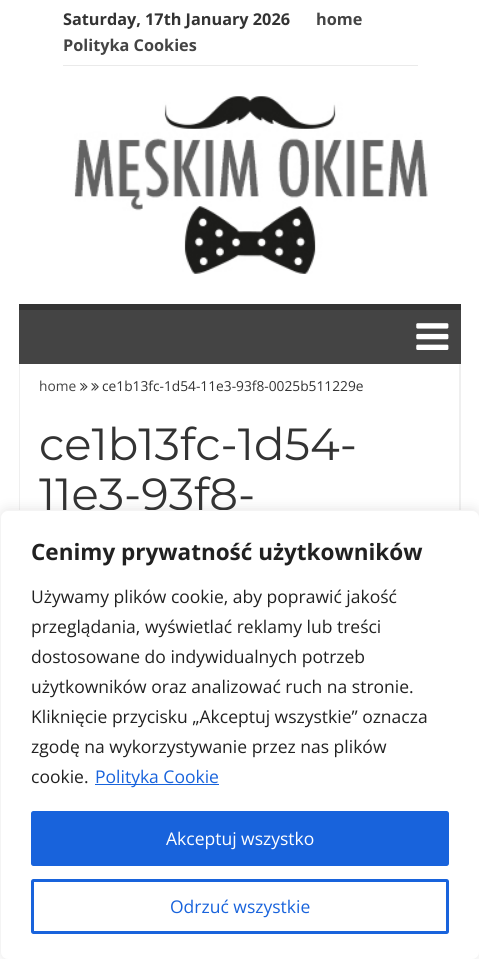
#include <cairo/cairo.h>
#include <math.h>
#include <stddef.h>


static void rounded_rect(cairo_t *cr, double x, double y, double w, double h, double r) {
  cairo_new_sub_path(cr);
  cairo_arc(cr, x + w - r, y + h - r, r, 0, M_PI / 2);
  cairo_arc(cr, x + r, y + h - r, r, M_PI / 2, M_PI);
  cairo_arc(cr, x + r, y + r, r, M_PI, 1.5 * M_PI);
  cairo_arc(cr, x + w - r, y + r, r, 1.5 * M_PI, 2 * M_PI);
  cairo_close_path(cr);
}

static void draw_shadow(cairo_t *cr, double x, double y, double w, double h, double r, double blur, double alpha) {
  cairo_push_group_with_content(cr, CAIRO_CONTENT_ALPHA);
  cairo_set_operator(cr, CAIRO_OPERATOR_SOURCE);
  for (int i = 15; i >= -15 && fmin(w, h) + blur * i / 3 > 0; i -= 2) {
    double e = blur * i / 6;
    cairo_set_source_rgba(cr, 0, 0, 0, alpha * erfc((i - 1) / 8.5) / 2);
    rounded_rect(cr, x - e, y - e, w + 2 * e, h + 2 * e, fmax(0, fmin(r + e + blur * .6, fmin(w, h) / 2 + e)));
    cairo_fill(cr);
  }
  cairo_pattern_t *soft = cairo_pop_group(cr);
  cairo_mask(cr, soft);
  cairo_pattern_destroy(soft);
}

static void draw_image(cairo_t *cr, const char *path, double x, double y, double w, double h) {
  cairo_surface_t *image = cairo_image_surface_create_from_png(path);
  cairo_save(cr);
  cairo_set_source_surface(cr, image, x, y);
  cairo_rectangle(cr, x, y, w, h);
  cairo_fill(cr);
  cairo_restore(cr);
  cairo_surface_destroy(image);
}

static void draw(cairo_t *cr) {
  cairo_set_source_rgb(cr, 1, 1, 1);
  cairo_paint(cr);
  cairo_set_source_rgb(cr, 234 / 255.0, 234 / 255.0, 234 / 255.0);
  cairo_rectangle(cr, 63, 65, 355, 1);
  cairo_fill(cr);
  draw_image(cr, "images/1.png", 74, 96, 354, 178);
  cairo_set_source_rgb(cr, 68 / 255.0, 68 / 255.0, 68 / 255.0);
  cairo_rectangle(cr, 19, 310, 442, 54);
  cairo_fill(cr);
  cairo_set_source_rgb(cr, 51 / 255.0, 51 / 255.0, 51 / 255.0);
  cairo_rectangle(cr, 19, 304, 442, 6);
  cairo_fill(cr);
  draw_image(cr, "images/2.png", 416, 323, 33, 27);
  cairo_set_source_rgb(cr, 239 / 255.0, 239 / 255.0, 239 / 255.0);
  cairo_rectangle(cr, 459, 364, 2, 146);
  cairo_fill(cr);
  cairo_rectangle(cr, 19, 364, 1, 146);
  cairo_fill(cr);
  draw_image(cr, "images/3.png", 80, 383, 8, 8);
  draw_image(cr, "images/4.png", 91, 383, 8, 8);
  cairo_set_source_rgb(cr, 172 / 255.0, 171 / 255.0, 171 / 255.0);
  draw_shadow(cr, 0, 509, 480, 450, 8, 6, 0.3);
  cairo_select_font_face(cr, "Open Sans", CAIRO_FONT_SLANT_NORMAL, CAIRO_FONT_WEIGHT_BOLD);
  cairo_set_font_size(cr, 16.25);
  cairo_set_source_rgb(cr, 51 / 255.0, 51 / 255.0, 51 / 255.0);
  cairo_move_to(cr, 63, 25);
  cairo_show_text(cr, "Saturday, 17th January 2026");
  cairo_set_source_rgb(cr, 68 / 255.0, 68 / 255.0, 68 / 255.0);
  cairo_move_to(cr, 316, 25);
  cairo_show_text(cr, "home");
  cairo_move_to(cr, 63, 51);
  cairo_show_text(cr, "Polityka Cookies");
  cairo_select_font_face(cr, "Open Sans", CAIRO_FONT_SLANT_NORMAL, CAIRO_FONT_WEIGHT_NORMAL);
  cairo_set_font_size(cr, 13.75);
  cairo_move_to(cr, 39, 391);
  cairo_show_text(cr, "home");
  cairo_set_source_rgb(cr, 51 / 255.0, 51 / 255.0, 51 / 255.0);
  cairo_move_to(cr, 102, 391);
  cairo_show_text(cr, "ce1b13fc-1d54-11e3-93f8-0025b511229e");
  cairo_select_font_face(cr, "Montserrat", CAIRO_FONT_SLANT_NORMAL, CAIRO_FONT_WEIGHT_NORMAL);
  cairo_set_font_size(cr, 45);
  cairo_move_to(cr, 39, 460);
  cairo_show_text(cr, "ce1b13fc-1d54-");
  cairo_move_to(cr, 39, 510);
  cairo_show_text(cr, "11e3-93f8-");
  cairo_set_source_rgb(cr, 1, 1, 1);
  rounded_rect(cr, 0.5, 510.5, 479, 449, 7.5);
  cairo_fill_preserve(cr);
  cairo_set_source_rgb(cr, 244 / 255.0, 244 / 255.0, 244 / 255.0);
  cairo_set_line_width(cr, 1);
  cairo_stroke(cr);
  cairo_select_font_face(cr, "Open Sans", CAIRO_FONT_SLANT_NORMAL, CAIRO_FONT_WEIGHT_BOLD);
  cairo_set_font_size(cr, 22.5);
  cairo_set_source_rgb(cr, 33 / 255.0, 33 / 255.0, 33 / 255.0);
  cairo_move_to(cr, 31, 560);
  cairo_show_text(cr, "Cenimy prywatność użytkowników");
  cairo_select_font_face(cr, "Open Sans", CAIRO_FONT_SLANT_NORMAL, CAIRO_FONT_WEIGHT_NORMAL);
  cairo_set_font_size(cr, 17.5);
  cairo_move_to(cr, 31, 603);
  cairo_show_text(cr, "Używamy plików cookie, aby poprawić jakość");
  cairo_move_to(cr, 31, 633);
  cairo_show_text(cr, "przeglądania, wyświetlać reklamy lub treści");
  cairo_move_to(cr, 31, 663);
  cairo_show_text(cr, "dostosowane do indywidualnych potrzeb");
  cairo_move_to(cr, 31, 693);
  cairo_show_text(cr, "użytkowników oraz analizować ruch na stronie.");
  cairo_move_to(cr, 31, 723);
  cairo_show_text(cr, "Kliknięcie przycisku „Akceptuj wszystkie” oznacza");
  cairo_move_to(cr, 31, 753);
  cairo_show_text(cr, "zgodę na wykorzystywanie przez nas plików");
  cairo_move_to(cr, 31, 783);
  cairo_show_text(cr, "cookie.");
  cairo_set_source_rgb(cr, 24 / 255.0, 99 / 255.0, 220 / 255.0);
  cairo_rectangle(cr, 95, 784, 124, 1);
  cairo_fill(cr);
  cairo_move_to(cr, 95, 783);
  cairo_show_text(cr, "Polityka Cookie");
  rounded_rect(cr, 32.5, 812.5, 415, 52, 1);
  cairo_fill_preserve(cr);
  cairo_set_line_width(cr, 3);
  cairo_stroke(cr);
  cairo_set_source_rgb(cr, 1, 1, 1);
  cairo_move_to(cr, 166, 845);
  cairo_show_text(cr, "Akceptuj wszystko");
  rounded_rect(cr, 32.5, 880.5, 415, 52, 1);
  cairo_set_source_rgb(cr, 24 / 255.0, 99 / 255.0, 220 / 255.0);
  cairo_stroke(cr);
  cairo_move_to(cr, 170, 913);
  cairo_show_text(cr, "Odrzuć wszystkie");
}

int main(void) {
  cairo_surface_t *surface = cairo_image_surface_create(CAIRO_FORMAT_RGB24, 479, 959);
  cairo_t *cr = cairo_create(surface);
  cairo_font_options_t *options = cairo_font_options_create();
  cairo_font_options_set_hint_metrics(options, CAIRO_HINT_METRICS_OFF);
  cairo_font_options_set_hint_style(options, CAIRO_HINT_STYLE_NONE);
  cairo_set_font_options(cr, options);
  cairo_set_miter_limit(cr, 4);
  draw(cr);
  cairo_surface_write_to_png(surface, "out.png");
  cairo_font_options_destroy(options);
  cairo_destroy(cr);
  cairo_surface_destroy(surface);
  return 0;
}
